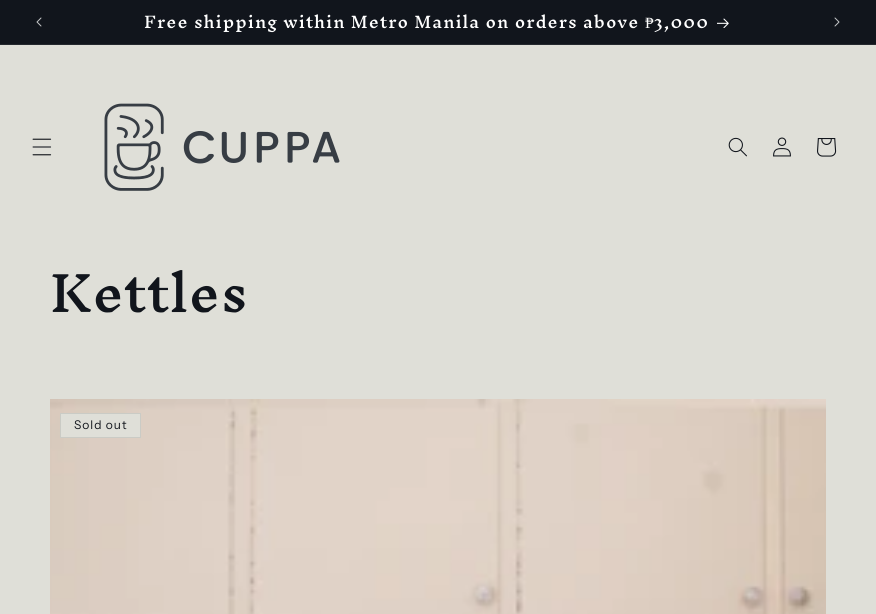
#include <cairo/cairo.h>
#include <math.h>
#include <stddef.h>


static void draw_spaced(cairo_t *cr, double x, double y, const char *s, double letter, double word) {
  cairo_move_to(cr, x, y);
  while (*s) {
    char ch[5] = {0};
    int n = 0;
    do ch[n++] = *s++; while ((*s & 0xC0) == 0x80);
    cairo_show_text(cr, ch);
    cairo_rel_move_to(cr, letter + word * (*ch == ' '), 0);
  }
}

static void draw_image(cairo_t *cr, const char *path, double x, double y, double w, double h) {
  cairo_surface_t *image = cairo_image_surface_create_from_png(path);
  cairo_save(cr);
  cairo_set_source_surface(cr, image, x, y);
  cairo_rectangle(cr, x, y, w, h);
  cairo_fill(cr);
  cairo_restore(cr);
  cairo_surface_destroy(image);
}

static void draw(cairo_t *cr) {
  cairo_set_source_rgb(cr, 223 / 255.0, 223 / 255.0, 216 / 255.0);
  cairo_paint(cr);
  cairo_set_source_rgb(cr, 17 / 255.0, 21 / 255.0, 28 / 255.0);
  cairo_rectangle(cr, 0, 0, 876, 44);
  cairo_fill(cr);
  cairo_set_source_rgb(cr, 36 / 255.0, 40 / 255.0, 46 / 255.0);
  cairo_rectangle(cr, 0, 44, 876, 1);
  cairo_fill(cr);
  draw_image(cr, "images/1.png", 36, 17, 6, 10);
  draw_image(cr, "images/2.png", 717, 18, 12, 10);
  draw_image(cr, "images/3.png", 834, 17, 6, 10);
  draw_image(cr, "images/4.png", 32, 138, 20, 18);
  draw_image(cr, "images/5.png", 104, 103, 236, 88);
  draw_image(cr, "images/6.png", 728, 137, 19, 20);
  draw_image(cr, "images/7.png", 773, 137, 18, 20);
  draw_image(cr, "images/8.png", 817, 138, 20, 19);
  draw_image(cr, "images/9.png", 50, 399, 776, 215);
  cairo_set_source_rgb(cr, 223 / 255.0, 223 / 255.0, 216 / 255.0);
  cairo_rectangle(cr, 60.5, 413.5, 80, 24);
  cairo_fill_preserve(cr);
  cairo_set_source_rgb(cr, 202 / 255.0, 203 / 255.0, 197 / 255.0);
  cairo_set_line_width(cr, 1);
  cairo_stroke(cr);
  cairo_select_font_face(cr, "Inknut Antiqua Medium", CAIRO_FONT_SLANT_NORMAL, CAIRO_FONT_WEIGHT_NORMAL);
  cairo_set_font_size(cr, 15.6);
  cairo_set_source_rgb(cr, 1, 1, 1);
  draw_spaced(cr, 144, 28, "Free shipping within Metro Manila on orders above", 1, 0);
  cairo_select_font_face(cr, "Liberation Serif", CAIRO_FONT_SLANT_NORMAL, CAIRO_FONT_WEIGHT_NORMAL);
  draw_spaced(cr, 645, 28, "₱", 1, 0);
  cairo_select_font_face(cr, "Inknut Antiqua Medium", CAIRO_FONT_SLANT_NORMAL, CAIRO_FONT_WEIGHT_NORMAL);
  draw_spaced(cr, 654, 28, "3,000", 1, 0);
  cairo_set_font_size(cr, 48);
  cairo_set_source_rgb(cr, 17 / 255.0, 21 / 255.0, 28 / 255.0);
  draw_spaced(cr, 50, 312, "Kettles", 0.75, 0);
  cairo_select_font_face(cr, "Instrument Sans", CAIRO_FONT_SLANT_NORMAL, CAIRO_FONT_WEIGHT_NORMAL);
  cairo_set_font_size(cr, 12);
  draw_spaced(cr, 74, 429, "Sold out", 1, 0);
}

int main(void) {
  cairo_surface_t *surface = cairo_image_surface_create(CAIRO_FORMAT_RGB24, 876, 614);
  cairo_t *cr = cairo_create(surface);
  cairo_font_options_t *options = cairo_font_options_create();
  cairo_font_options_set_hint_metrics(options, CAIRO_HINT_METRICS_OFF);
  cairo_font_options_set_hint_style(options, CAIRO_HINT_STYLE_NONE);
  cairo_set_font_options(cr, options);
  cairo_set_miter_limit(cr, 4);
  draw(cr);
  cairo_surface_write_to_png(surface, "out.png");
  cairo_font_options_destroy(options);
  cairo_destroy(cr);
  cairo_surface_destroy(surface);
  return 0;
}
